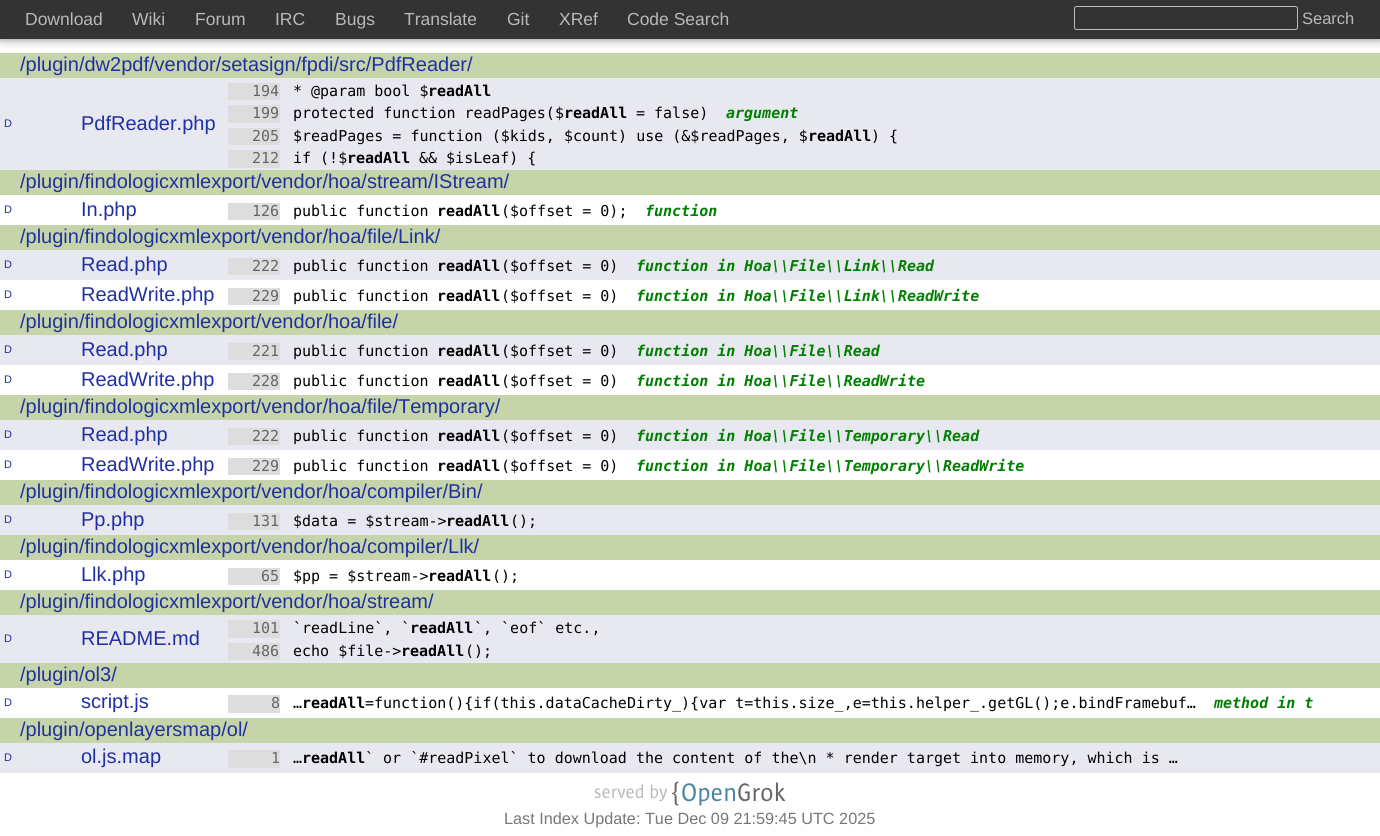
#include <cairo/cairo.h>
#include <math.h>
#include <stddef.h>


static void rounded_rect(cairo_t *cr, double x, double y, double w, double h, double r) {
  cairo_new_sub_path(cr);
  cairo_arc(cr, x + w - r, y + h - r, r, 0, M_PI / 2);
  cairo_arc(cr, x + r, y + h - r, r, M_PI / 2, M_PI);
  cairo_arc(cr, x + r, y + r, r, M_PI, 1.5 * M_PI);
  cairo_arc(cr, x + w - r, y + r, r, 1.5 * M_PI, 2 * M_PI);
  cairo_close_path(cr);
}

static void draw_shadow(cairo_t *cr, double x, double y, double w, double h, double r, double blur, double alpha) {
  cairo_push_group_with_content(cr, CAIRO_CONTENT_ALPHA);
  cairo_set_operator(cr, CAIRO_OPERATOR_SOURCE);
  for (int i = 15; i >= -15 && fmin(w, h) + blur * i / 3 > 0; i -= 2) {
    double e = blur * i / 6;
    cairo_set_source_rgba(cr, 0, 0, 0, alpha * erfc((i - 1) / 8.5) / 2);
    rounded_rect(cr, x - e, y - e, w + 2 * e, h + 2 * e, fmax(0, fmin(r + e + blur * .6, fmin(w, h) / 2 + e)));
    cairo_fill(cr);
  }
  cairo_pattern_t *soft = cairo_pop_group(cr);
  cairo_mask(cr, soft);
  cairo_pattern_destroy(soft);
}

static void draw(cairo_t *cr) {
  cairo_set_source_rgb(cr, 1, 1, 1);
  cairo_paint(cr);
  cairo_set_source_rgb(cr, 197 / 255.0, 213 / 255.0, 169 / 255.0);
  cairo_rectangle(cr, 0, 53, 1380, 25);
  cairo_fill(cr);
  cairo_set_source_rgb(cr, 0, 0, 0);
  draw_shadow(cr, 0, 0, 1380, 39, 0, 5, 0.5);
  cairo_set_source_rgb(cr, 51 / 255.0, 51 / 255.0, 51 / 255.0);
  cairo_rectangle(cr, 0, 0, 1380, 39);
  cairo_fill(cr);
  rounded_rect(cr, 1074.5, 6.5, 223, 23, 2);
  cairo_set_source_rgb(cr, 187 / 255.0, 187 / 255.0, 187 / 255.0);
  cairo_set_line_width(cr, 1);
  cairo_stroke(cr);
  cairo_set_source_rgb(cr, 232 / 255.0, 232 / 255.0, 240 / 255.0);
  cairo_rectangle(cr, 0, 78, 1380, 92);
  cairo_fill(cr);
  cairo_set_source_rgb(cr, 221 / 255.0, 221 / 255.0, 221 / 255.0);
  cairo_rectangle(cr, 228, 83, 52, 17);
  cairo_fill(cr);
  cairo_rectangle(cr, 228, 105, 52, 18);
  cairo_fill(cr);
  cairo_rectangle(cr, 228, 128, 52, 17);
  cairo_fill(cr);
  cairo_rectangle(cr, 228, 150, 52, 18);
  cairo_fill(cr);
  cairo_set_source_rgb(cr, 197 / 255.0, 213 / 255.0, 169 / 255.0);
  cairo_rectangle(cr, 0, 170, 1380, 25);
  cairo_fill(cr);
  cairo_set_source_rgb(cr, 221 / 255.0, 221 / 255.0, 221 / 255.0);
  cairo_rectangle(cr, 228, 203, 52, 17);
  cairo_fill(cr);
  cairo_set_source_rgb(cr, 197 / 255.0, 213 / 255.0, 169 / 255.0);
  cairo_rectangle(cr, 0, 225, 1380, 25);
  cairo_fill(cr);
  cairo_set_source_rgb(cr, 232 / 255.0, 232 / 255.0, 240 / 255.0);
  cairo_rectangle(cr, 0, 250, 1380, 30);
  cairo_fill(cr);
  cairo_set_source_rgb(cr, 221 / 255.0, 221 / 255.0, 221 / 255.0);
  cairo_rectangle(cr, 228, 258, 52, 17);
  cairo_fill(cr);
  cairo_rectangle(cr, 228, 288, 52, 17);
  cairo_fill(cr);
  cairo_set_source_rgb(cr, 197 / 255.0, 213 / 255.0, 169 / 255.0);
  cairo_rectangle(cr, 0, 310, 1380, 25);
  cairo_fill(cr);
  cairo_set_source_rgb(cr, 232 / 255.0, 232 / 255.0, 240 / 255.0);
  cairo_rectangle(cr, 0, 335, 1380, 30);
  cairo_fill(cr);
  cairo_set_source_rgb(cr, 221 / 255.0, 221 / 255.0, 221 / 255.0);
  cairo_rectangle(cr, 228, 343, 52, 17);
  cairo_fill(cr);
  cairo_rectangle(cr, 228, 373, 52, 17);
  cairo_fill(cr);
  cairo_set_source_rgb(cr, 197 / 255.0, 213 / 255.0, 169 / 255.0);
  cairo_rectangle(cr, 0, 395, 1380, 25);
  cairo_fill(cr);
  cairo_set_source_rgb(cr, 232 / 255.0, 232 / 255.0, 240 / 255.0);
  cairo_rectangle(cr, 0, 420, 1380, 30);
  cairo_fill(cr);
  cairo_set_source_rgb(cr, 221 / 255.0, 221 / 255.0, 221 / 255.0);
  cairo_rectangle(cr, 228, 428, 52, 17);
  cairo_fill(cr);
  cairo_rectangle(cr, 228, 458, 52, 17);
  cairo_fill(cr);
  cairo_set_source_rgb(cr, 197 / 255.0, 213 / 255.0, 169 / 255.0);
  cairo_rectangle(cr, 0, 480, 1380, 25);
  cairo_fill(cr);
  cairo_set_source_rgb(cr, 232 / 255.0, 232 / 255.0, 240 / 255.0);
  cairo_rectangle(cr, 0, 505, 1380, 30);
  cairo_fill(cr);
  cairo_set_source_rgb(cr, 221 / 255.0, 221 / 255.0, 221 / 255.0);
  cairo_rectangle(cr, 228, 513, 52, 17);
  cairo_fill(cr);
  cairo_set_source_rgb(cr, 197 / 255.0, 213 / 255.0, 169 / 255.0);
  cairo_rectangle(cr, 0, 535, 1380, 25);
  cairo_fill(cr);
  cairo_set_source_rgb(cr, 221 / 255.0, 221 / 255.0, 221 / 255.0);
  cairo_rectangle(cr, 228, 568, 52, 17);
  cairo_fill(cr);
  cairo_set_source_rgb(cr, 197 / 255.0, 213 / 255.0, 169 / 255.0);
  cairo_rectangle(cr, 0, 590, 1380, 25);
  cairo_fill(cr);
  cairo_set_source_rgb(cr, 232 / 255.0, 232 / 255.0, 240 / 255.0);
  cairo_rectangle(cr, 0, 615, 1380, 48);
  cairo_fill(cr);
  cairo_set_source_rgb(cr, 221 / 255.0, 221 / 255.0, 221 / 255.0);
  cairo_rectangle(cr, 228, 620, 52, 18);
  cairo_fill(cr);
  cairo_rectangle(cr, 228, 643, 52, 17);
  cairo_fill(cr);
  cairo_set_source_rgb(cr, 197 / 255.0, 213 / 255.0, 169 / 255.0);
  cairo_rectangle(cr, 0, 663, 1380, 25);
  cairo_fill(cr);
  cairo_set_source_rgb(cr, 221 / 255.0, 221 / 255.0, 221 / 255.0);
  cairo_rectangle(cr, 228, 695, 52, 18);
  cairo_fill(cr);
  cairo_set_source_rgb(cr, 197 / 255.0, 213 / 255.0, 169 / 255.0);
  cairo_rectangle(cr, 0, 718, 1380, 25);
  cairo_fill(cr);
  cairo_set_source_rgb(cr, 232 / 255.0, 232 / 255.0, 240 / 255.0);
  cairo_rectangle(cr, 0, 743, 1380, 30);
  cairo_fill(cr);
  cairo_set_source_rgb(cr, 221 / 255.0, 221 / 255.0, 221 / 255.0);
  cairo_rectangle(cr, 228, 750, 52, 18);
  cairo_fill(cr);
  cairo_select_font_face(cr, "Liberation Sans", CAIRO_FONT_SLANT_NORMAL, CAIRO_FONT_WEIGHT_NORMAL);
  cairo_set_font_size(cr, 17.5);
  cairo_set_source_rgb(cr, 184 / 255.0, 186 / 255.0, 183 / 255.0);
  cairo_move_to(cr, 25, 25);
  cairo_show_text(cr, "Download");
  cairo_move_to(cr, 132, 25);
  cairo_show_text(cr, "Wiki");
  cairo_move_to(cr, 195, 25);
  cairo_show_text(cr, "Forum");
  cairo_move_to(cr, 275, 25);
  cairo_show_text(cr, "IRC");
  cairo_move_to(cr, 335, 25);
  cairo_show_text(cr, "Bugs");
  cairo_move_to(cr, 404, 25);
  cairo_show_text(cr, "Translate");
  cairo_move_to(cr, 507, 25);
  cairo_show_text(cr, "Git");
  cairo_move_to(cr, 559, 25);
  cairo_show_text(cr, "XRef");
  cairo_move_to(cr, 627, 25);
  cairo_show_text(cr, "Code Search");
  cairo_set_font_size(cr, 16.5);
  cairo_move_to(cr, 1302, 24);
  cairo_show_text(cr, "Search");
  cairo_select_font_face(cr, "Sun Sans", CAIRO_FONT_SLANT_NORMAL, CAIRO_FONT_WEIGHT_NORMAL);
  cairo_set_font_size(cr, 19);
  cairo_move_to(cr, 594, 798);
  cairo_show_text(cr, "served by");
  cairo_set_font_size(cr, 26);
  cairo_set_source_rgb(cr, 102 / 255.0, 102 / 255.0, 102 / 255.0);
  cairo_move_to(cr, 671, 801);
  cairo_show_text(cr, "{");
  cairo_set_source_rgb(cr, 71 / 255.0, 131 / 255.0, 163 / 255.0);
  cairo_move_to(cr, 681, 801);
  cairo_show_text(cr, "Open");
  cairo_set_source_rgb(cr, 102 / 255.0, 102 / 255.0, 102 / 255.0);
  cairo_move_to(cr, 737, 801);
  cairo_show_text(cr, "Grok");
  cairo_select_font_face(cr, "Liberation Sans", CAIRO_FONT_SLANT_NORMAL, CAIRO_FONT_WEIGHT_NORMAL);
  cairo_set_font_size(cr, 16.25);
  cairo_set_source_rgb(cr, 119 / 255.0, 119 / 255.0, 119 / 255.0);
  cairo_move_to(cr, 504, 824);
  cairo_show_text(cr, "Last Index Update: Tue Dec 09 21:59:45 UTC 2025");
  cairo_set_font_size(cr, 20);
  cairo_set_source_rgb(cr, 32 / 255.0, 48 / 255.0, 162 / 255.0);
  cairo_move_to(cr, 20, 71);
  cairo_show_text(cr, "/plugin/dw2pdf/vendor/setasign/fpdi/src/PdfReader/");
  cairo_set_font_size(cr, 11);
  cairo_move_to(cr, 4, 127);
  cairo_show_text(cr, "D");
  cairo_set_font_size(cr, 20);
  cairo_move_to(cr, 81, 130);
  cairo_show_text(cr, "PdfReader.php");
  cairo_select_font_face(cr, "DejaVu Sans Mono", CAIRO_FONT_SLANT_NORMAL, CAIRO_FONT_WEIGHT_NORMAL);
  cairo_set_font_size(cr, 15);
  cairo_set_source_rgb(cr, 102 / 255.0, 102 / 255.0, 102 / 255.0);
  cairo_move_to(cr, 252, 96);
  cairo_show_text(cr, "194");
  cairo_set_source_rgb(cr, 0, 0, 0);
  cairo_move_to(cr, 293, 96);
  cairo_show_text(cr, "* @param bool $");
  cairo_select_font_face(cr, "DejaVu Sans Mono", CAIRO_FONT_SLANT_NORMAL, CAIRO_FONT_WEIGHT_BOLD);
  cairo_move_to(cr, 428, 96);
  cairo_show_text(cr, "readAll");
  cairo_select_font_face(cr, "DejaVu Sans Mono", CAIRO_FONT_SLANT_NORMAL, CAIRO_FONT_WEIGHT_NORMAL);
  cairo_set_source_rgb(cr, 102 / 255.0, 102 / 255.0, 102 / 255.0);
  cairo_move_to(cr, 252, 118);
  cairo_show_text(cr, "199");
  cairo_set_source_rgb(cr, 0, 0, 0);
  cairo_move_to(cr, 293, 118);
  cairo_show_text(cr, "protected function readPages($");
  cairo_select_font_face(cr, "DejaVu Sans Mono", CAIRO_FONT_SLANT_NORMAL, CAIRO_FONT_WEIGHT_BOLD);
  cairo_move_to(cr, 564, 118);
  cairo_show_text(cr, "readAll");
  cairo_select_font_face(cr, "DejaVu Sans Mono", CAIRO_FONT_SLANT_NORMAL, CAIRO_FONT_WEIGHT_NORMAL);
  cairo_move_to(cr, 636, 118);
  cairo_show_text(cr, "= false)");
  cairo_select_font_face(cr, "DejaVu Sans Mono", CAIRO_FONT_SLANT_ITALIC, CAIRO_FONT_WEIGHT_BOLD);
  cairo_set_source_rgb(cr, 0, 128 / 255.0, 0);
  cairo_move_to(cr, 726, 118);
  cairo_show_text(cr, "argument");
  cairo_select_font_face(cr, "DejaVu Sans Mono", CAIRO_FONT_SLANT_NORMAL, CAIRO_FONT_WEIGHT_NORMAL);
  cairo_set_source_rgb(cr, 102 / 255.0, 102 / 255.0, 102 / 255.0);
  cairo_move_to(cr, 252, 141);
  cairo_show_text(cr, "205");
  cairo_set_source_rgb(cr, 0, 0, 0);
  cairo_move_to(cr, 293, 141);
  cairo_show_text(cr, "$readPages = function ($kids, $count) use (&$readPages, $");
  cairo_select_font_face(cr, "DejaVu Sans Mono", CAIRO_FONT_SLANT_NORMAL, CAIRO_FONT_WEIGHT_BOLD);
  cairo_move_to(cr, 808, 141);
  cairo_show_text(cr, "readAll");
  cairo_select_font_face(cr, "DejaVu Sans Mono", CAIRO_FONT_SLANT_NORMAL, CAIRO_FONT_WEIGHT_NORMAL);
  cairo_move_to(cr, 871, 141);
  cairo_show_text(cr, ") {");
  cairo_set_source_rgb(cr, 102 / 255.0, 102 / 255.0, 102 / 255.0);
  cairo_move_to(cr, 252, 163);
  cairo_show_text(cr, "212");
  cairo_set_source_rgb(cr, 0, 0, 0);
  cairo_move_to(cr, 293, 163);
  cairo_show_text(cr, "if (!$");
  cairo_select_font_face(cr, "DejaVu Sans Mono", CAIRO_FONT_SLANT_NORMAL, CAIRO_FONT_WEIGHT_BOLD);
  cairo_move_to(cr, 347, 163);
  cairo_show_text(cr, "readAll");
  cairo_select_font_face(cr, "DejaVu Sans Mono", CAIRO_FONT_SLANT_NORMAL, CAIRO_FONT_WEIGHT_NORMAL);
  cairo_move_to(cr, 419, 163);
  cairo_show_text(cr, "&& $isLeaf) {");
  cairo_select_font_face(cr, "Liberation Sans", CAIRO_FONT_SLANT_NORMAL, CAIRO_FONT_WEIGHT_NORMAL);
  cairo_set_font_size(cr, 20);
  cairo_set_source_rgb(cr, 32 / 255.0, 48 / 255.0, 162 / 255.0);
  cairo_move_to(cr, 20, 188);
  cairo_show_text(cr, "/plugin/findologicxmlexport/vendor/hoa/stream/IStream/");
  cairo_set_font_size(cr, 11);
  cairo_move_to(cr, 4, 213);
  cairo_show_text(cr, "D");
  cairo_set_font_size(cr, 20);
  cairo_move_to(cr, 81, 216);
  cairo_show_text(cr, "In.php");
  cairo_select_font_face(cr, "DejaVu Sans Mono", CAIRO_FONT_SLANT_NORMAL, CAIRO_FONT_WEIGHT_NORMAL);
  cairo_set_font_size(cr, 15);
  cairo_set_source_rgb(cr, 102 / 255.0, 102 / 255.0, 102 / 255.0);
  cairo_move_to(cr, 252, 216);
  cairo_show_text(cr, "126");
  cairo_set_source_rgb(cr, 0, 0, 0);
  cairo_move_to(cr, 293, 216);
  cairo_show_text(cr, "public function");
  cairo_select_font_face(cr, "DejaVu Sans Mono", CAIRO_FONT_SLANT_NORMAL, CAIRO_FONT_WEIGHT_BOLD);
  cairo_move_to(cr, 437, 216);
  cairo_show_text(cr, "readAll");
  cairo_select_font_face(cr, "DejaVu Sans Mono", CAIRO_FONT_SLANT_NORMAL, CAIRO_FONT_WEIGHT_NORMAL);
  cairo_move_to(cr, 501, 216);
  cairo_show_text(cr, "($offset = 0);");
  cairo_select_font_face(cr, "DejaVu Sans Mono", CAIRO_FONT_SLANT_ITALIC, CAIRO_FONT_WEIGHT_BOLD);
  cairo_set_source_rgb(cr, 0, 128 / 255.0, 0);
  cairo_move_to(cr, 645, 216);
  cairo_show_text(cr, "function");
  cairo_select_font_face(cr, "Liberation Sans", CAIRO_FONT_SLANT_NORMAL, CAIRO_FONT_WEIGHT_NORMAL);
  cairo_set_font_size(cr, 20);
  cairo_set_source_rgb(cr, 32 / 255.0, 48 / 255.0, 162 / 255.0);
  cairo_move_to(cr, 20, 243);
  cairo_show_text(cr, "/plugin/findologicxmlexport/vendor/hoa/file/Link/");
  cairo_set_font_size(cr, 11);
  cairo_move_to(cr, 4, 268);
  cairo_show_text(cr, "D");
  cairo_set_font_size(cr, 20);
  cairo_move_to(cr, 81, 271);
  cairo_show_text(cr, "Read.php");
  cairo_select_font_face(cr, "DejaVu Sans Mono", CAIRO_FONT_SLANT_NORMAL, CAIRO_FONT_WEIGHT_NORMAL);
  cairo_set_font_size(cr, 15);
  cairo_set_source_rgb(cr, 102 / 255.0, 102 / 255.0, 102 / 255.0);
  cairo_move_to(cr, 252, 271);
  cairo_show_text(cr, "222");
  cairo_set_source_rgb(cr, 0, 0, 0);
  cairo_move_to(cr, 293, 271);
  cairo_show_text(cr, "public function");
  cairo_select_font_face(cr, "DejaVu Sans Mono", CAIRO_FONT_SLANT_NORMAL, CAIRO_FONT_WEIGHT_BOLD);
  cairo_move_to(cr, 437, 271);
  cairo_show_text(cr, "readAll");
  cairo_select_font_face(cr, "DejaVu Sans Mono", CAIRO_FONT_SLANT_NORMAL, CAIRO_FONT_WEIGHT_NORMAL);
  cairo_move_to(cr, 501, 271);
  cairo_show_text(cr, "($offset = 0)");
  cairo_select_font_face(cr, "DejaVu Sans Mono", CAIRO_FONT_SLANT_ITALIC, CAIRO_FONT_WEIGHT_BOLD);
  cairo_set_source_rgb(cr, 0, 128 / 255.0, 0);
  cairo_move_to(cr, 636, 271);
  cairo_show_text(cr, "function in Hoa\\\\File\\\\Link\\\\Read");
  cairo_select_font_face(cr, "Liberation Sans", CAIRO_FONT_SLANT_NORMAL, CAIRO_FONT_WEIGHT_NORMAL);
  cairo_set_font_size(cr, 11);
  cairo_set_source_rgb(cr, 32 / 255.0, 48 / 255.0, 162 / 255.0);
  cairo_move_to(cr, 4, 298);
  cairo_show_text(cr, "D");
  cairo_set_font_size(cr, 20);
  cairo_move_to(cr, 81, 301);
  cairo_show_text(cr, "ReadWrite.php");
  cairo_select_font_face(cr, "DejaVu Sans Mono", CAIRO_FONT_SLANT_NORMAL, CAIRO_FONT_WEIGHT_NORMAL);
  cairo_set_font_size(cr, 15);
  cairo_set_source_rgb(cr, 102 / 255.0, 102 / 255.0, 102 / 255.0);
  cairo_move_to(cr, 252, 301);
  cairo_show_text(cr, "229");
  cairo_set_source_rgb(cr, 0, 0, 0);
  cairo_move_to(cr, 293, 301);
  cairo_show_text(cr, "public function");
  cairo_select_font_face(cr, "DejaVu Sans Mono", CAIRO_FONT_SLANT_NORMAL, CAIRO_FONT_WEIGHT_BOLD);
  cairo_move_to(cr, 437, 301);
  cairo_show_text(cr, "readAll");
  cairo_select_font_face(cr, "DejaVu Sans Mono", CAIRO_FONT_SLANT_NORMAL, CAIRO_FONT_WEIGHT_NORMAL);
  cairo_move_to(cr, 501, 301);
  cairo_show_text(cr, "($offset = 0)");
  cairo_select_font_face(cr, "DejaVu Sans Mono", CAIRO_FONT_SLANT_ITALIC, CAIRO_FONT_WEIGHT_BOLD);
  cairo_set_source_rgb(cr, 0, 128 / 255.0, 0);
  cairo_move_to(cr, 636, 301);
  cairo_show_text(cr, "function in Hoa\\\\File\\\\Link\\\\ReadWrite");
  cairo_select_font_face(cr, "Liberation Sans", CAIRO_FONT_SLANT_NORMAL, CAIRO_FONT_WEIGHT_NORMAL);
  cairo_set_font_size(cr, 20);
  cairo_set_source_rgb(cr, 32 / 255.0, 48 / 255.0, 162 / 255.0);
  cairo_move_to(cr, 20, 328);
  cairo_show_text(cr, "/plugin/findologicxmlexport/vendor/hoa/file/");
  cairo_set_font_size(cr, 11);
  cairo_move_to(cr, 4, 353);
  cairo_show_text(cr, "D");
  cairo_set_font_size(cr, 20);
  cairo_move_to(cr, 81, 356);
  cairo_show_text(cr, "Read.php");
  cairo_select_font_face(cr, "DejaVu Sans Mono", CAIRO_FONT_SLANT_NORMAL, CAIRO_FONT_WEIGHT_NORMAL);
  cairo_set_font_size(cr, 15);
  cairo_set_source_rgb(cr, 102 / 255.0, 102 / 255.0, 102 / 255.0);
  cairo_move_to(cr, 252, 356);
  cairo_show_text(cr, "221");
  cairo_set_source_rgb(cr, 0, 0, 0);
  cairo_move_to(cr, 293, 356);
  cairo_show_text(cr, "public function");
  cairo_select_font_face(cr, "DejaVu Sans Mono", CAIRO_FONT_SLANT_NORMAL, CAIRO_FONT_WEIGHT_BOLD);
  cairo_move_to(cr, 437, 356);
  cairo_show_text(cr, "readAll");
  cairo_select_font_face(cr, "DejaVu Sans Mono", CAIRO_FONT_SLANT_NORMAL, CAIRO_FONT_WEIGHT_NORMAL);
  cairo_move_to(cr, 501, 356);
  cairo_show_text(cr, "($offset = 0)");
  cairo_select_font_face(cr, "DejaVu Sans Mono", CAIRO_FONT_SLANT_ITALIC, CAIRO_FONT_WEIGHT_BOLD);
  cairo_set_source_rgb(cr, 0, 128 / 255.0, 0);
  cairo_move_to(cr, 636, 356);
  cairo_show_text(cr, "function in Hoa\\\\File\\\\Read");
  cairo_select_font_face(cr, "Liberation Sans", CAIRO_FONT_SLANT_NORMAL, CAIRO_FONT_WEIGHT_NORMAL);
  cairo_set_font_size(cr, 11);
  cairo_set_source_rgb(cr, 32 / 255.0, 48 / 255.0, 162 / 255.0);
  cairo_move_to(cr, 4, 383);
  cairo_show_text(cr, "D");
  cairo_set_font_size(cr, 20);
  cairo_move_to(cr, 81, 386);
  cairo_show_text(cr, "ReadWrite.php");
  cairo_select_font_face(cr, "DejaVu Sans Mono", CAIRO_FONT_SLANT_NORMAL, CAIRO_FONT_WEIGHT_NORMAL);
  cairo_set_font_size(cr, 15);
  cairo_set_source_rgb(cr, 102 / 255.0, 102 / 255.0, 102 / 255.0);
  cairo_move_to(cr, 252, 386);
  cairo_show_text(cr, "228");
  cairo_set_source_rgb(cr, 0, 0, 0);
  cairo_move_to(cr, 293, 386);
  cairo_show_text(cr, "public function");
  cairo_select_font_face(cr, "DejaVu Sans Mono", CAIRO_FONT_SLANT_NORMAL, CAIRO_FONT_WEIGHT_BOLD);
  cairo_move_to(cr, 437, 386);
  cairo_show_text(cr, "readAll");
  cairo_select_font_face(cr, "DejaVu Sans Mono", CAIRO_FONT_SLANT_NORMAL, CAIRO_FONT_WEIGHT_NORMAL);
  cairo_move_to(cr, 501, 386);
  cairo_show_text(cr, "($offset = 0)");
  cairo_select_font_face(cr, "DejaVu Sans Mono", CAIRO_FONT_SLANT_ITALIC, CAIRO_FONT_WEIGHT_BOLD);
  cairo_set_source_rgb(cr, 0, 128 / 255.0, 0);
  cairo_move_to(cr, 636, 386);
  cairo_show_text(cr, "function in Hoa\\\\File\\\\ReadWrite");
  cairo_select_font_face(cr, "Liberation Sans", CAIRO_FONT_SLANT_NORMAL, CAIRO_FONT_WEIGHT_NORMAL);
  cairo_set_font_size(cr, 20);
  cairo_set_source_rgb(cr, 32 / 255.0, 48 / 255.0, 162 / 255.0);
  cairo_move_to(cr, 20, 413);
  cairo_show_text(cr, "/plugin/findologicxmlexport/vendor/hoa/file/Temporary/");
  cairo_set_font_size(cr, 11);
  cairo_move_to(cr, 4, 438);
  cairo_show_text(cr, "D");
  cairo_set_font_size(cr, 20);
  cairo_move_to(cr, 81, 441);
  cairo_show_text(cr, "Read.php");
  cairo_select_font_face(cr, "DejaVu Sans Mono", CAIRO_FONT_SLANT_NORMAL, CAIRO_FONT_WEIGHT_NORMAL);
  cairo_set_font_size(cr, 15);
  cairo_set_source_rgb(cr, 102 / 255.0, 102 / 255.0, 102 / 255.0);
  cairo_move_to(cr, 252, 441);
  cairo_show_text(cr, "222");
  cairo_set_source_rgb(cr, 0, 0, 0);
  cairo_move_to(cr, 293, 441);
  cairo_show_text(cr, "public function");
  cairo_select_font_face(cr, "DejaVu Sans Mono", CAIRO_FONT_SLANT_NORMAL, CAIRO_FONT_WEIGHT_BOLD);
  cairo_move_to(cr, 437, 441);
  cairo_show_text(cr, "readAll");
  cairo_select_font_face(cr, "DejaVu Sans Mono", CAIRO_FONT_SLANT_NORMAL, CAIRO_FONT_WEIGHT_NORMAL);
  cairo_move_to(cr, 501, 441);
  cairo_show_text(cr, "($offset = 0)");
  cairo_select_font_face(cr, "DejaVu Sans Mono", CAIRO_FONT_SLANT_ITALIC, CAIRO_FONT_WEIGHT_BOLD);
  cairo_set_source_rgb(cr, 0, 128 / 255.0, 0);
  cairo_move_to(cr, 636, 441);
  cairo_show_text(cr, "function in Hoa\\\\File\\\\Temporary\\\\Read");
  cairo_select_font_face(cr, "Liberation Sans", CAIRO_FONT_SLANT_NORMAL, CAIRO_FONT_WEIGHT_NORMAL);
  cairo_set_font_size(cr, 11);
  cairo_set_source_rgb(cr, 32 / 255.0, 48 / 255.0, 162 / 255.0);
  cairo_move_to(cr, 4, 468);
  cairo_show_text(cr, "D");
  cairo_set_font_size(cr, 20);
  cairo_move_to(cr, 81, 471);
  cairo_show_text(cr, "ReadWrite.php");
  cairo_select_font_face(cr, "DejaVu Sans Mono", CAIRO_FONT_SLANT_NORMAL, CAIRO_FONT_WEIGHT_NORMAL);
  cairo_set_font_size(cr, 15);
  cairo_set_source_rgb(cr, 102 / 255.0, 102 / 255.0, 102 / 255.0);
  cairo_move_to(cr, 252, 471);
  cairo_show_text(cr, "229");
  cairo_set_source_rgb(cr, 0, 0, 0);
  cairo_move_to(cr, 293, 471);
  cairo_show_text(cr, "public function");
  cairo_select_font_face(cr, "DejaVu Sans Mono", CAIRO_FONT_SLANT_NORMAL, CAIRO_FONT_WEIGHT_BOLD);
  cairo_move_to(cr, 437, 471);
  cairo_show_text(cr, "readAll");
  cairo_select_font_face(cr, "DejaVu Sans Mono", CAIRO_FONT_SLANT_NORMAL, CAIRO_FONT_WEIGHT_NORMAL);
  cairo_move_to(cr, 501, 471);
  cairo_show_text(cr, "($offset = 0)");
  cairo_select_font_face(cr, "DejaVu Sans Mono", CAIRO_FONT_SLANT_ITALIC, CAIRO_FONT_WEIGHT_BOLD);
  cairo_set_source_rgb(cr, 0, 128 / 255.0, 0);
  cairo_move_to(cr, 636, 471);
  cairo_show_text(cr, "function in Hoa\\\\File\\\\Temporary\\\\ReadWrite");
  cairo_select_font_face(cr, "Liberation Sans", CAIRO_FONT_SLANT_NORMAL, CAIRO_FONT_WEIGHT_NORMAL);
  cairo_set_font_size(cr, 20);
  cairo_set_source_rgb(cr, 32 / 255.0, 48 / 255.0, 162 / 255.0);
  cairo_move_to(cr, 20, 498);
  cairo_show_text(cr, "/plugin/findologicxmlexport/vendor/hoa/compiler/Bin/");
  cairo_set_font_size(cr, 11);
  cairo_move_to(cr, 4, 523);
  cairo_show_text(cr, "D");
  cairo_set_font_size(cr, 20);
  cairo_move_to(cr, 81, 526);
  cairo_show_text(cr, "Pp.php");
  cairo_select_font_face(cr, "DejaVu Sans Mono", CAIRO_FONT_SLANT_NORMAL, CAIRO_FONT_WEIGHT_NORMAL);
  cairo_set_font_size(cr, 15);
  cairo_set_source_rgb(cr, 102 / 255.0, 102 / 255.0, 102 / 255.0);
  cairo_move_to(cr, 252, 526);
  cairo_show_text(cr, "131");
  cairo_set_source_rgb(cr, 0, 0, 0);
  cairo_move_to(cr, 293, 526);
  cairo_show_text(cr, "$data = $stream->");
  cairo_select_font_face(cr, "DejaVu Sans Mono", CAIRO_FONT_SLANT_NORMAL, CAIRO_FONT_WEIGHT_BOLD);
  cairo_move_to(cr, 446, 526);
  cairo_show_text(cr, "readAll");
  cairo_select_font_face(cr, "DejaVu Sans Mono", CAIRO_FONT_SLANT_NORMAL, CAIRO_FONT_WEIGHT_NORMAL);
  cairo_move_to(cr, 510, 526);
  cairo_show_text(cr, "();");
  cairo_select_font_face(cr, "Liberation Sans", CAIRO_FONT_SLANT_NORMAL, CAIRO_FONT_WEIGHT_NORMAL);
  cairo_set_font_size(cr, 20);
  cairo_set_source_rgb(cr, 32 / 255.0, 48 / 255.0, 162 / 255.0);
  cairo_move_to(cr, 20, 553);
  cairo_show_text(cr, "/plugin/findologicxmlexport/vendor/hoa/compiler/Llk/");
  cairo_set_font_size(cr, 11);
  cairo_move_to(cr, 4, 578);
  cairo_show_text(cr, "D");
  cairo_set_font_size(cr, 20);
  cairo_move_to(cr, 81, 581);
  cairo_show_text(cr, "Llk.php");
  cairo_select_font_face(cr, "DejaVu Sans Mono", CAIRO_FONT_SLANT_NORMAL, CAIRO_FONT_WEIGHT_NORMAL);
  cairo_set_font_size(cr, 15);
  cairo_set_source_rgb(cr, 102 / 255.0, 102 / 255.0, 102 / 255.0);
  cairo_move_to(cr, 261, 581);
  cairo_show_text(cr, "65");
  cairo_set_source_rgb(cr, 0, 0, 0);
  cairo_move_to(cr, 293, 581);
  cairo_show_text(cr, "$pp = $stream->");
  cairo_select_font_face(cr, "DejaVu Sans Mono", CAIRO_FONT_SLANT_NORMAL, CAIRO_FONT_WEIGHT_BOLD);
  cairo_move_to(cr, 428, 581);
  cairo_show_text(cr, "readAll");
  cairo_select_font_face(cr, "DejaVu Sans Mono", CAIRO_FONT_SLANT_NORMAL, CAIRO_FONT_WEIGHT_NORMAL);
  cairo_move_to(cr, 492, 581);
  cairo_show_text(cr, "();");
  cairo_select_font_face(cr, "Liberation Sans", CAIRO_FONT_SLANT_NORMAL, CAIRO_FONT_WEIGHT_NORMAL);
  cairo_set_font_size(cr, 20);
  cairo_set_source_rgb(cr, 32 / 255.0, 48 / 255.0, 162 / 255.0);
  cairo_move_to(cr, 20, 608);
  cairo_show_text(cr, "/plugin/findologicxmlexport/vendor/hoa/stream/");
  cairo_set_font_size(cr, 11);
  cairo_move_to(cr, 4, 642);
  cairo_show_text(cr, "D");
  cairo_set_font_size(cr, 20);
  cairo_move_to(cr, 81, 645);
  cairo_show_text(cr, "README.md");
  cairo_select_font_face(cr, "DejaVu Sans Mono", CAIRO_FONT_SLANT_NORMAL, CAIRO_FONT_WEIGHT_NORMAL);
  cairo_set_font_size(cr, 15);
  cairo_set_source_rgb(cr, 102 / 255.0, 102 / 255.0, 102 / 255.0);
  cairo_move_to(cr, 252, 633);
  cairo_show_text(cr, "101");
  cairo_set_source_rgb(cr, 0, 0, 0);
  cairo_move_to(cr, 293, 633);
  cairo_show_text(cr, "`readLine`, `");
  cairo_select_font_face(cr, "DejaVu Sans Mono", CAIRO_FONT_SLANT_NORMAL, CAIRO_FONT_WEIGHT_BOLD);
  cairo_move_to(cr, 410, 633);
  cairo_show_text(cr, "readAll");
  cairo_select_font_face(cr, "DejaVu Sans Mono", CAIRO_FONT_SLANT_NORMAL, CAIRO_FONT_WEIGHT_NORMAL);
  cairo_move_to(cr, 474, 633);
  cairo_show_text(cr, "`, `eof` etc.,");
  cairo_set_source_rgb(cr, 102 / 255.0, 102 / 255.0, 102 / 255.0);
  cairo_move_to(cr, 252, 656);
  cairo_show_text(cr, "486");
  cairo_set_source_rgb(cr, 0, 0, 0);
  cairo_move_to(cr, 293, 656);
  cairo_show_text(cr, "echo $file->");
  cairo_select_font_face(cr, "DejaVu Sans Mono", CAIRO_FONT_SLANT_NORMAL, CAIRO_FONT_WEIGHT_BOLD);
  cairo_move_to(cr, 401, 656);
  cairo_show_text(cr, "readAll");
  cairo_select_font_face(cr, "DejaVu Sans Mono", CAIRO_FONT_SLANT_NORMAL, CAIRO_FONT_WEIGHT_NORMAL);
  cairo_move_to(cr, 465, 656);
  cairo_show_text(cr, "();");
  cairo_select_font_face(cr, "Liberation Sans", CAIRO_FONT_SLANT_NORMAL, CAIRO_FONT_WEIGHT_NORMAL);
  cairo_set_font_size(cr, 20);
  cairo_set_source_rgb(cr, 32 / 255.0, 48 / 255.0, 162 / 255.0);
  cairo_move_to(cr, 20, 681);
  cairo_show_text(cr, "/plugin/ol3/");
  cairo_set_font_size(cr, 11);
  cairo_move_to(cr, 4, 706);
  cairo_show_text(cr, "D");
  cairo_set_font_size(cr, 20);
  cairo_move_to(cr, 81, 708);
  cairo_show_text(cr, "script.js");
  cairo_select_font_face(cr, "DejaVu Sans Mono", CAIRO_FONT_SLANT_NORMAL, CAIRO_FONT_WEIGHT_NORMAL);
  cairo_set_font_size(cr, 15);
  cairo_set_source_rgb(cr, 102 / 255.0, 102 / 255.0, 102 / 255.0);
  cairo_move_to(cr, 271, 708);
  cairo_show_text(cr, "8");
  cairo_set_source_rgb(cr, 0, 0, 0);
  cairo_move_to(cr, 293, 708);
  cairo_show_text(cr, "…");
  cairo_select_font_face(cr, "DejaVu Sans Mono", CAIRO_FONT_SLANT_NORMAL, CAIRO_FONT_WEIGHT_BOLD);
  cairo_move_to(cr, 302, 708);
  cairo_show_text(cr, "readAll");
  cairo_select_font_face(cr, "DejaVu Sans Mono", CAIRO_FONT_SLANT_NORMAL, CAIRO_FONT_WEIGHT_NORMAL);
  cairo_move_to(cr, 365, 708);
  cairo_show_text(cr, "=function(){if(this.dataCacheDirty_){var t=this.size_,e=this.helper_.getGL();e.bindFramebuf…");
  cairo_select_font_face(cr, "DejaVu Sans Mono", CAIRO_FONT_SLANT_ITALIC, CAIRO_FONT_WEIGHT_BOLD);
  cairo_set_source_rgb(cr, 0, 128 / 255.0, 0);
  cairo_move_to(cr, 1214, 708);
  cairo_show_text(cr, "method in t");
  cairo_select_font_face(cr, "Liberation Sans", CAIRO_FONT_SLANT_NORMAL, CAIRO_FONT_WEIGHT_NORMAL);
  cairo_set_font_size(cr, 20);
  cairo_set_source_rgb(cr, 32 / 255.0, 48 / 255.0, 162 / 255.0);
  cairo_move_to(cr, 20, 736);
  cairo_show_text(cr, "/plugin/openlayersmap/ol/");
  cairo_set_font_size(cr, 11);
  cairo_move_to(cr, 4, 761);
  cairo_show_text(cr, "D");
  cairo_set_font_size(cr, 20);
  cairo_move_to(cr, 81, 763);
  cairo_show_text(cr, "ol.js.map");
  cairo_select_font_face(cr, "DejaVu Sans Mono", CAIRO_FONT_SLANT_NORMAL, CAIRO_FONT_WEIGHT_NORMAL);
  cairo_set_font_size(cr, 15);
  cairo_set_source_rgb(cr, 102 / 255.0, 102 / 255.0, 102 / 255.0);
  cairo_move_to(cr, 271, 763);
  cairo_show_text(cr, "1");
  cairo_set_source_rgb(cr, 0, 0, 0);
  cairo_move_to(cr, 293, 763);
  cairo_show_text(cr, "…");
  cairo_select_font_face(cr, "DejaVu Sans Mono", CAIRO_FONT_SLANT_NORMAL, CAIRO_FONT_WEIGHT_BOLD);
  cairo_move_to(cr, 302, 763);
  cairo_show_text(cr, "readAll");
  cairo_select_font_face(cr, "DejaVu Sans Mono", CAIRO_FONT_SLANT_NORMAL, CAIRO_FONT_WEIGHT_NORMAL);
  cairo_move_to(cr, 365, 763);
  cairo_show_text(cr, "` or `#readPixel` to download the content of the\\n * render target into memory, which is …");
}

int main(void) {
  cairo_surface_t *surface = cairo_image_surface_create(CAIRO_FORMAT_RGB24, 1380, 836);
  cairo_t *cr = cairo_create(surface);
  cairo_font_options_t *options = cairo_font_options_create();
  cairo_font_options_set_hint_metrics(options, CAIRO_HINT_METRICS_OFF);
  cairo_font_options_set_hint_style(options, CAIRO_HINT_STYLE_NONE);
  cairo_set_font_options(cr, options);
  cairo_set_miter_limit(cr, 4);
  draw(cr);
  cairo_surface_write_to_png(surface, "out.png");
  cairo_font_options_destroy(options);
  cairo_destroy(cr);
  cairo_surface_destroy(surface);
  return 0;
}
